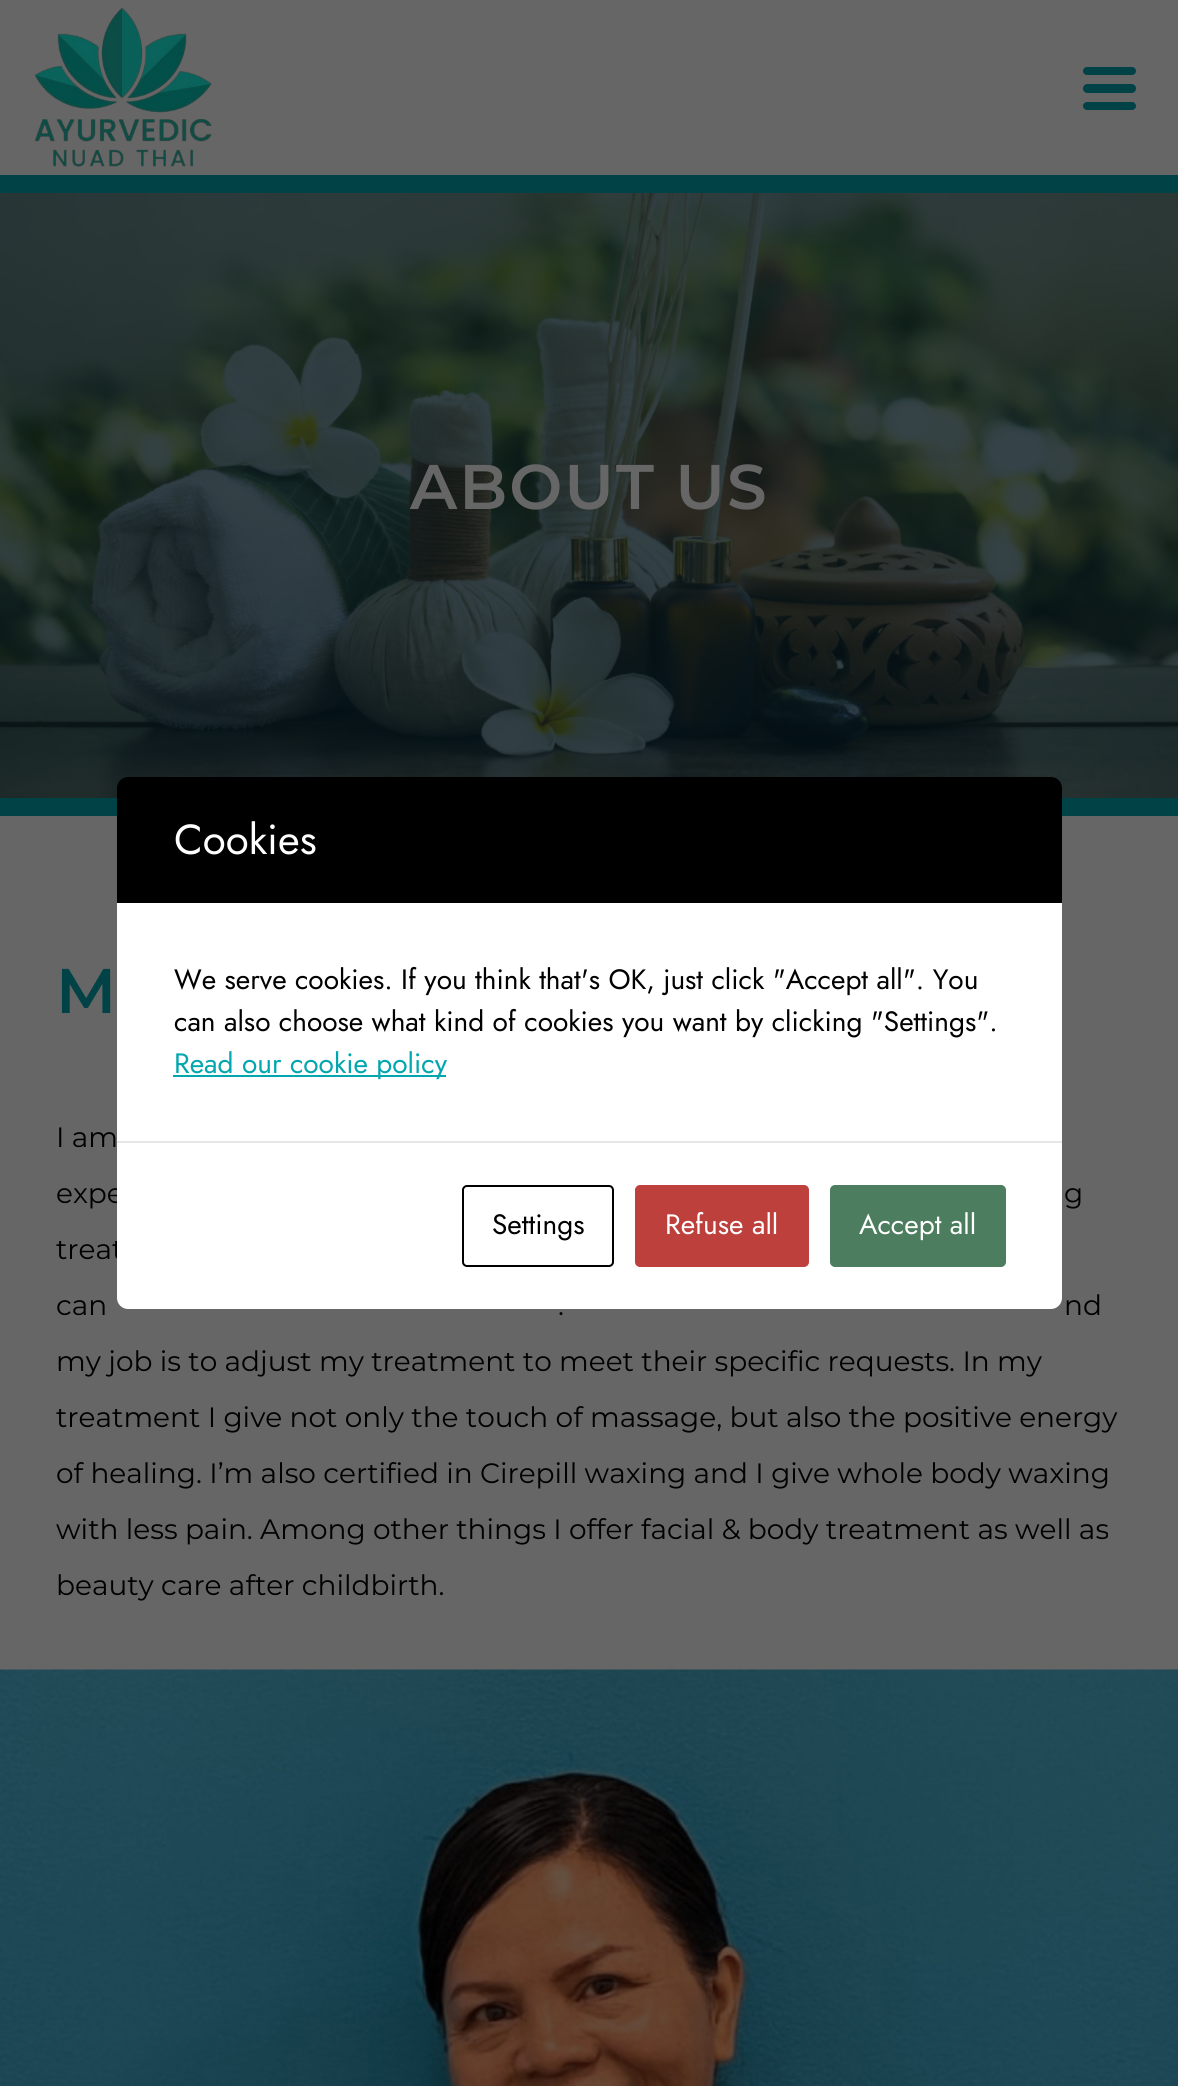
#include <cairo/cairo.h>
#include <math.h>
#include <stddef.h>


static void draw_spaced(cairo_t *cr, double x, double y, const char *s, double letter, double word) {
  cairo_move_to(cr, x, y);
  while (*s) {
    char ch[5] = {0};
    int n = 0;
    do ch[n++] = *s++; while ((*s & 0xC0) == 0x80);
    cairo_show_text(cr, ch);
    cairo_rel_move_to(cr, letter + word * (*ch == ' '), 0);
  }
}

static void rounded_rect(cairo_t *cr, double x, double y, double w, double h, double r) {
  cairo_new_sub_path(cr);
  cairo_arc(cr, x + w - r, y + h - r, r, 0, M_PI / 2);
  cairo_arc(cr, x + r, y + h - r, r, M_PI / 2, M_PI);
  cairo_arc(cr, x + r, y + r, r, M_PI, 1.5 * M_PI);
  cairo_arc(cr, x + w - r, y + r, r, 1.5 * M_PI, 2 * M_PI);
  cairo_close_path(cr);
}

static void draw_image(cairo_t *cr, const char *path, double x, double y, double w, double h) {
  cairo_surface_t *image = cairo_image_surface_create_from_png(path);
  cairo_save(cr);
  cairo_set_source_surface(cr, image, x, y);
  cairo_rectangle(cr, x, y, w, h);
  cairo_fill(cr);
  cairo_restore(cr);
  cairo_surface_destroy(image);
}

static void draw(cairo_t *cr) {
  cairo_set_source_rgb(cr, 102 / 255.0, 102 / 255.0, 102 / 255.0);
  cairo_paint(cr);
  draw_image(cr, "images/1.png", 34, 7, 178, 160);
  cairo_set_source_rgb(cr, 0, 66 / 255.0, 70 / 255.0);
  rounded_rect(cr, 1083, 67, 53, 8, 4);
  cairo_fill(cr);
  rounded_rect(cr, 1083, 84, 53, 9, 4.5);
  cairo_fill(cr);
  rounded_rect(cr, 1083, 102, 53, 8, 4);
  cairo_fill(cr);
  draw_image(cr, "images/2.png", 0, 193, 1178, 605);
  cairo_rectangle(cr, 0, 175, 1178, 18);
  cairo_fill(cr);
  cairo_rectangle(cr, 0, 798, 1178, 18);
  cairo_fill(cr);
  draw_image(cr, "images/3.png", 0, 1669, 1178, 417);
  cairo_set_source_rgb(cr, 0, 0, 0);
  cairo_new_path(cr);
  cairo_move_to(cr, 128, 777);
  cairo_line_to(cr, 1051, 777);
  cairo_curve_to(cr, 1057, 777, 1062, 782, 1062, 788);
  cairo_line_to(cr, 1062, 903);
  cairo_line_to(cr, 117, 903);
  cairo_line_to(cr, 117, 788);
  cairo_curve_to(cr, 117, 782, 122, 777, 128, 777);
  cairo_close_path(cr);
  cairo_fill(cr);
  cairo_set_source_rgb(cr, 1, 1, 1);
  cairo_rectangle(cr, 117, 903, 945, 238);
  cairo_fill(cr);
  cairo_set_source_rgb(cr, 1 / 255.0, 166 / 255.0, 174 / 255.0);
  cairo_rectangle(cr, 173, 1075, 273, 2);
  cairo_fill(cr);
  cairo_select_font_face(cr, "Montserrat SemiBold", CAIRO_FONT_SLANT_NORMAL, CAIRO_FONT_WEIGHT_NORMAL);
  cairo_set_font_size(cr, 63);
  cairo_set_source_rgb(cr, 102 / 255.0, 102 / 255.0, 102 / 255.0);
  draw_spaced(cr, 410, 509, "ABOUT US", 2, 0);
  cairo_set_source_rgb(cr, 0, 66 / 255.0, 70 / 255.0);
  draw_spaced(cr, 56, 1013, "M", 2, 0);
  cairo_select_font_face(cr, "Montserrat", CAIRO_FONT_SLANT_NORMAL, CAIRO_FONT_WEIGHT_NORMAL);
  cairo_set_font_size(cr, 28);
  cairo_set_source_rgb(cr, 0, 0, 0);
  cairo_move_to(cr, 56, 1147);
  cairo_show_text(cr, "I am");
  cairo_move_to(cr, 56, 1203);
  cairo_show_text(cr, "expe");
  cairo_move_to(cr, 1064, 1203);
  cairo_show_text(cr, "g");
  cairo_move_to(cr, 56, 1259);
  cairo_show_text(cr, "treat");
  cairo_move_to(cr, 56, 1315);
  cairo_show_text(cr, "can");
  cairo_move_to(cr, 558, 1315);
  cairo_show_text(cr, ".");
  cairo_move_to(cr, 1064, 1315);
  cairo_show_text(cr, "nd");
  cairo_move_to(cr, 56, 1371);
  cairo_show_text(cr, "my job is to adjust my treatment to meet their specific requests. In my");
  cairo_move_to(cr, 56, 1427);
  cairo_show_text(cr, "treatment I give not only the touch of massage, but also the positive energy");
  cairo_move_to(cr, 56, 1483);
  cairo_show_text(cr, "of healing. I’m also certified in Cirepill waxing and I give whole body waxing");
  cairo_move_to(cr, 56, 1539);
  cairo_show_text(cr, "with less pain. Among other things I offer facial & body treatment as well as");
  cairo_move_to(cr, 56, 1595);
  cairo_show_text(cr, "beauty care after childbirth.");
  cairo_select_font_face(cr, "Jost", CAIRO_FONT_SLANT_NORMAL, CAIRO_FONT_WEIGHT_NORMAL);
  cairo_set_font_size(cr, 42);
  cairo_set_source_rgb(cr, 1, 1, 1);
  cairo_move_to(cr, 174, 854);
  cairo_show_text(cr, "Cookies");
  cairo_set_font_size(cr, 28);
  cairo_set_source_rgb(cr, 0, 0, 0);
  cairo_move_to(cr, 174, 989);
  cairo_show_text(cr, "We serve cookies. If you think that's OK, just click \"Accept all\". You");
  cairo_move_to(cr, 174, 1031);
  cairo_show_text(cr, "can also choose what kind of cookies you want by clicking \"Settings\".");
  cairo_set_source_rgb(cr, 1 / 255.0, 166 / 255.0, 174 / 255.0);
  cairo_move_to(cr, 174, 1073);
  cairo_show_text(cr, "Read our cookie policy");
  cairo_set_source_rgb(cr, 1, 1, 1);
  cairo_new_path(cr);
  cairo_move_to(cr, 117, 1141);
  cairo_line_to(cr, 1062, 1141);
  cairo_line_to(cr, 1062, 1298);
  cairo_curve_to(cr, 1062, 1304, 1057, 1309, 1051, 1309);
  cairo_line_to(cr, 128, 1309);
  cairo_curve_to(cr, 122, 1309, 117, 1304, 117, 1298);
  cairo_close_path(cr);
  cairo_fill(cr);
  cairo_set_source_rgb(cr, 230 / 255.0, 230 / 255.0, 230 / 255.0);
  cairo_rectangle(cr, 117, 1141, 945, 2);
  cairo_fill(cr);
  rounded_rect(cr, 463, 1186, 150, 80, 4);
  cairo_set_source_rgb(cr, 0, 0, 0);
  cairo_stroke(cr);
  cairo_move_to(cr, 492, 1234);
  cairo_show_text(cr, "Settings");
  cairo_set_source_rgb(cr, 189 / 255.0, 64 / 255.0, 60 / 255.0);
  rounded_rect(cr, 636, 1186, 172, 80, 4);
  cairo_fill_preserve(cr);
  cairo_stroke(cr);
  cairo_set_source_rgb(cr, 1, 1, 1);
  cairo_move_to(cr, 665, 1234);
  cairo_show_text(cr, "Refuse all");
  cairo_set_source_rgb(cr, 75 / 255.0, 125 / 255.0, 94 / 255.0);
  rounded_rect(cr, 831, 1186, 174, 80, 4);
  cairo_fill_preserve(cr);
  cairo_stroke(cr);
  cairo_set_source_rgb(cr, 1, 1, 1);
  cairo_move_to(cr, 859, 1234);
  cairo_show_text(cr, "Accept all");
}

int main(void) {
  cairo_surface_t *surface = cairo_image_surface_create(CAIRO_FORMAT_RGB24, 1178, 2086);
  cairo_t *cr = cairo_create(surface);
  cairo_font_options_t *options = cairo_font_options_create();
  cairo_font_options_set_hint_metrics(options, CAIRO_HINT_METRICS_OFF);
  cairo_font_options_set_hint_style(options, CAIRO_HINT_STYLE_NONE);
  cairo_set_font_options(cr, options);
  cairo_set_miter_limit(cr, 4);
  draw(cr);
  cairo_surface_write_to_png(surface, "out.png");
  cairo_font_options_destroy(options);
  cairo_destroy(cr);
  cairo_surface_destroy(surface);
  return 0;
}
